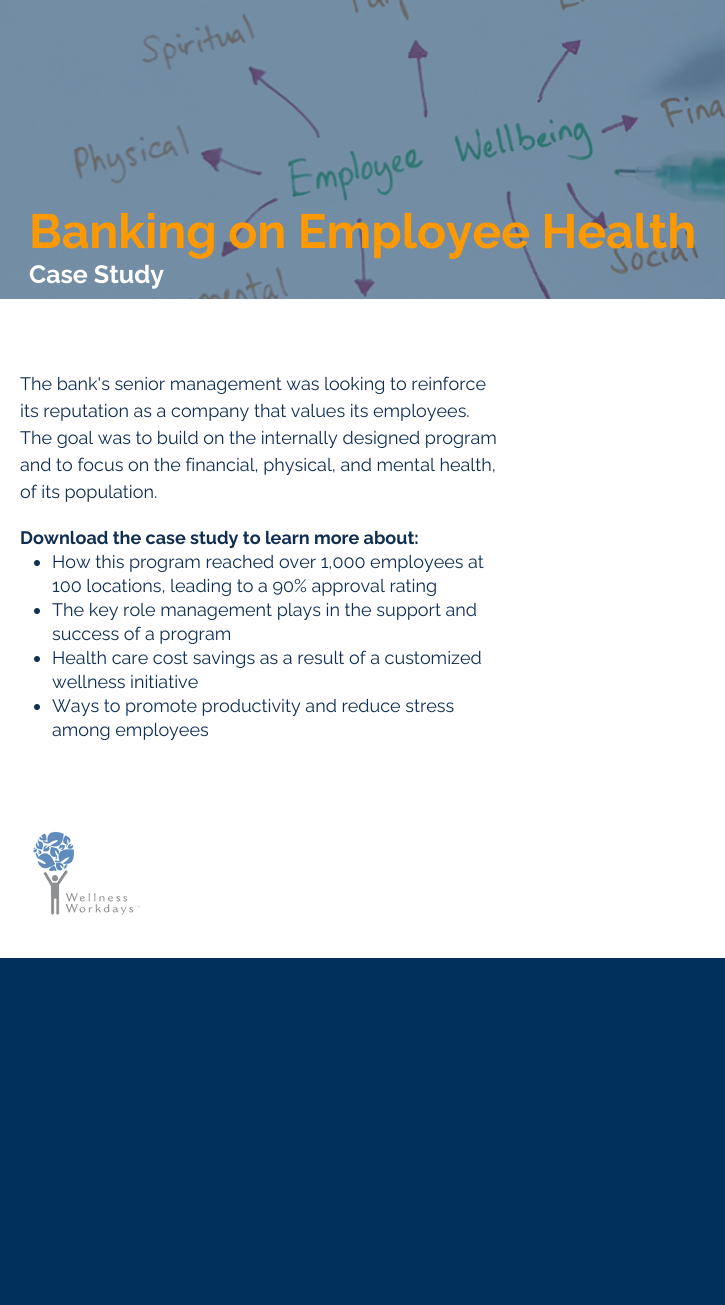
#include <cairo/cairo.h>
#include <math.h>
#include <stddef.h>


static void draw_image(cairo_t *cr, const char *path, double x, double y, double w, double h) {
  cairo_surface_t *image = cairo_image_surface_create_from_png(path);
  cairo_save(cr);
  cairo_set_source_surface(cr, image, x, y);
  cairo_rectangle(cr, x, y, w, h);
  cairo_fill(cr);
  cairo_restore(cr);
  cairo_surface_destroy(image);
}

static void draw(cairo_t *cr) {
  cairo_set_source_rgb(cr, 0, 48 / 255.0, 91 / 255.0);
  cairo_paint(cr);
  draw_image(cr, "images/1.png", 0, 0, 725, 299);
  cairo_set_source_rgb(cr, 1, 1, 1);
  cairo_rectangle(cr, 0, 299, 725, 659);
  cairo_fill(cr);
  cairo_set_source_rgb(cr, 16 / 255.0, 46 / 255.0, 82 / 255.0);
  cairo_arc(cr, 37, 563, 3, 0, 2 * M_PI);
  cairo_fill(cr);
  cairo_arc(cr, 37, 611, 3, 0, 2 * M_PI);
  cairo_fill(cr);
  cairo_arc(cr, 37, 659, 3, 0, 2 * M_PI);
  cairo_fill(cr);
  cairo_arc(cr, 37, 707, 3, 0, 2 * M_PI);
  cairo_fill(cr);
  draw_image(cr, "images/2.png", 33, 831, 107, 84);
  cairo_select_font_face(cr, "Raleway", CAIRO_FONT_SLANT_NORMAL, CAIRO_FONT_WEIGHT_BOLD);
  cairo_set_font_size(cr, 48);
  cairo_set_source_rgb(cr, 1, 153 / 255.0, 0);
  cairo_move_to(cr, 29, 248);
  cairo_show_text(cr, "Banking on Employee Health");
  cairo_set_font_size(cr, 25);
  cairo_set_source_rgb(cr, 1, 1, 254 / 255.0);
  cairo_move_to(cr, 29, 283);
  cairo_show_text(cr, "Case Study");
  cairo_select_font_face(cr, "Raleway", CAIRO_FONT_SLANT_NORMAL, CAIRO_FONT_WEIGHT_NORMAL);
  cairo_set_font_size(cr, 18);
  cairo_set_source_rgb(cr, 16 / 255.0, 46 / 255.0, 82 / 255.0);
  cairo_move_to(cr, 20, 390);
  cairo_show_text(cr, "The bank's senior management was looking to reinforce");
  cairo_move_to(cr, 20, 417);
  cairo_show_text(cr, "its reputation as a company that values its employees.");
  cairo_move_to(cr, 20, 444);
  cairo_show_text(cr, "The goal was to build on the internally designed program");
  cairo_move_to(cr, 20, 471);
  cairo_show_text(cr, "and to focus on the financial, physical, and mental health,");
  cairo_move_to(cr, 20, 498);
  cairo_show_text(cr, "of its population.");
  cairo_select_font_face(cr, "Raleway", CAIRO_FONT_SLANT_NORMAL, CAIRO_FONT_WEIGHT_BOLD);
  cairo_move_to(cr, 20, 544);
  cairo_show_text(cr, "Download the case study to learn more about:");
  cairo_select_font_face(cr, "Raleway", CAIRO_FONT_SLANT_NORMAL, CAIRO_FONT_WEIGHT_NORMAL);
  cairo_move_to(cr, 52, 568);
  cairo_show_text(cr, "How this program reached over 1,000 employees at");
  cairo_move_to(cr, 52, 592);
  cairo_show_text(cr, "100 locations, leading to a 90% approval rating");
  cairo_move_to(cr, 52, 616);
  cairo_show_text(cr, "The key role management plays in the support and");
  cairo_move_to(cr, 52, 640);
  cairo_show_text(cr, "success of a program");
  cairo_move_to(cr, 52, 664);
  cairo_show_text(cr, "Health care cost savings as a result of a customized");
  cairo_move_to(cr, 52, 688);
  cairo_show_text(cr, "wellness initiative");
  cairo_move_to(cr, 52, 712);
  cairo_show_text(cr, "Ways to promote productivity and reduce stress");
  cairo_move_to(cr, 52, 736);
  cairo_show_text(cr, "among employees");
}

int main(void) {
  cairo_surface_t *surface = cairo_image_surface_create(CAIRO_FORMAT_RGB24, 725, 1305);
  cairo_t *cr = cairo_create(surface);
  cairo_font_options_t *options = cairo_font_options_create();
  cairo_font_options_set_hint_metrics(options, CAIRO_HINT_METRICS_OFF);
  cairo_font_options_set_hint_style(options, CAIRO_HINT_STYLE_NONE);
  cairo_set_font_options(cr, options);
  cairo_set_miter_limit(cr, 4);
  draw(cr);
  cairo_surface_write_to_png(surface, "out.png");
  cairo_font_options_destroy(options);
  cairo_destroy(cr);
  cairo_surface_destroy(surface);
  return 0;
}
